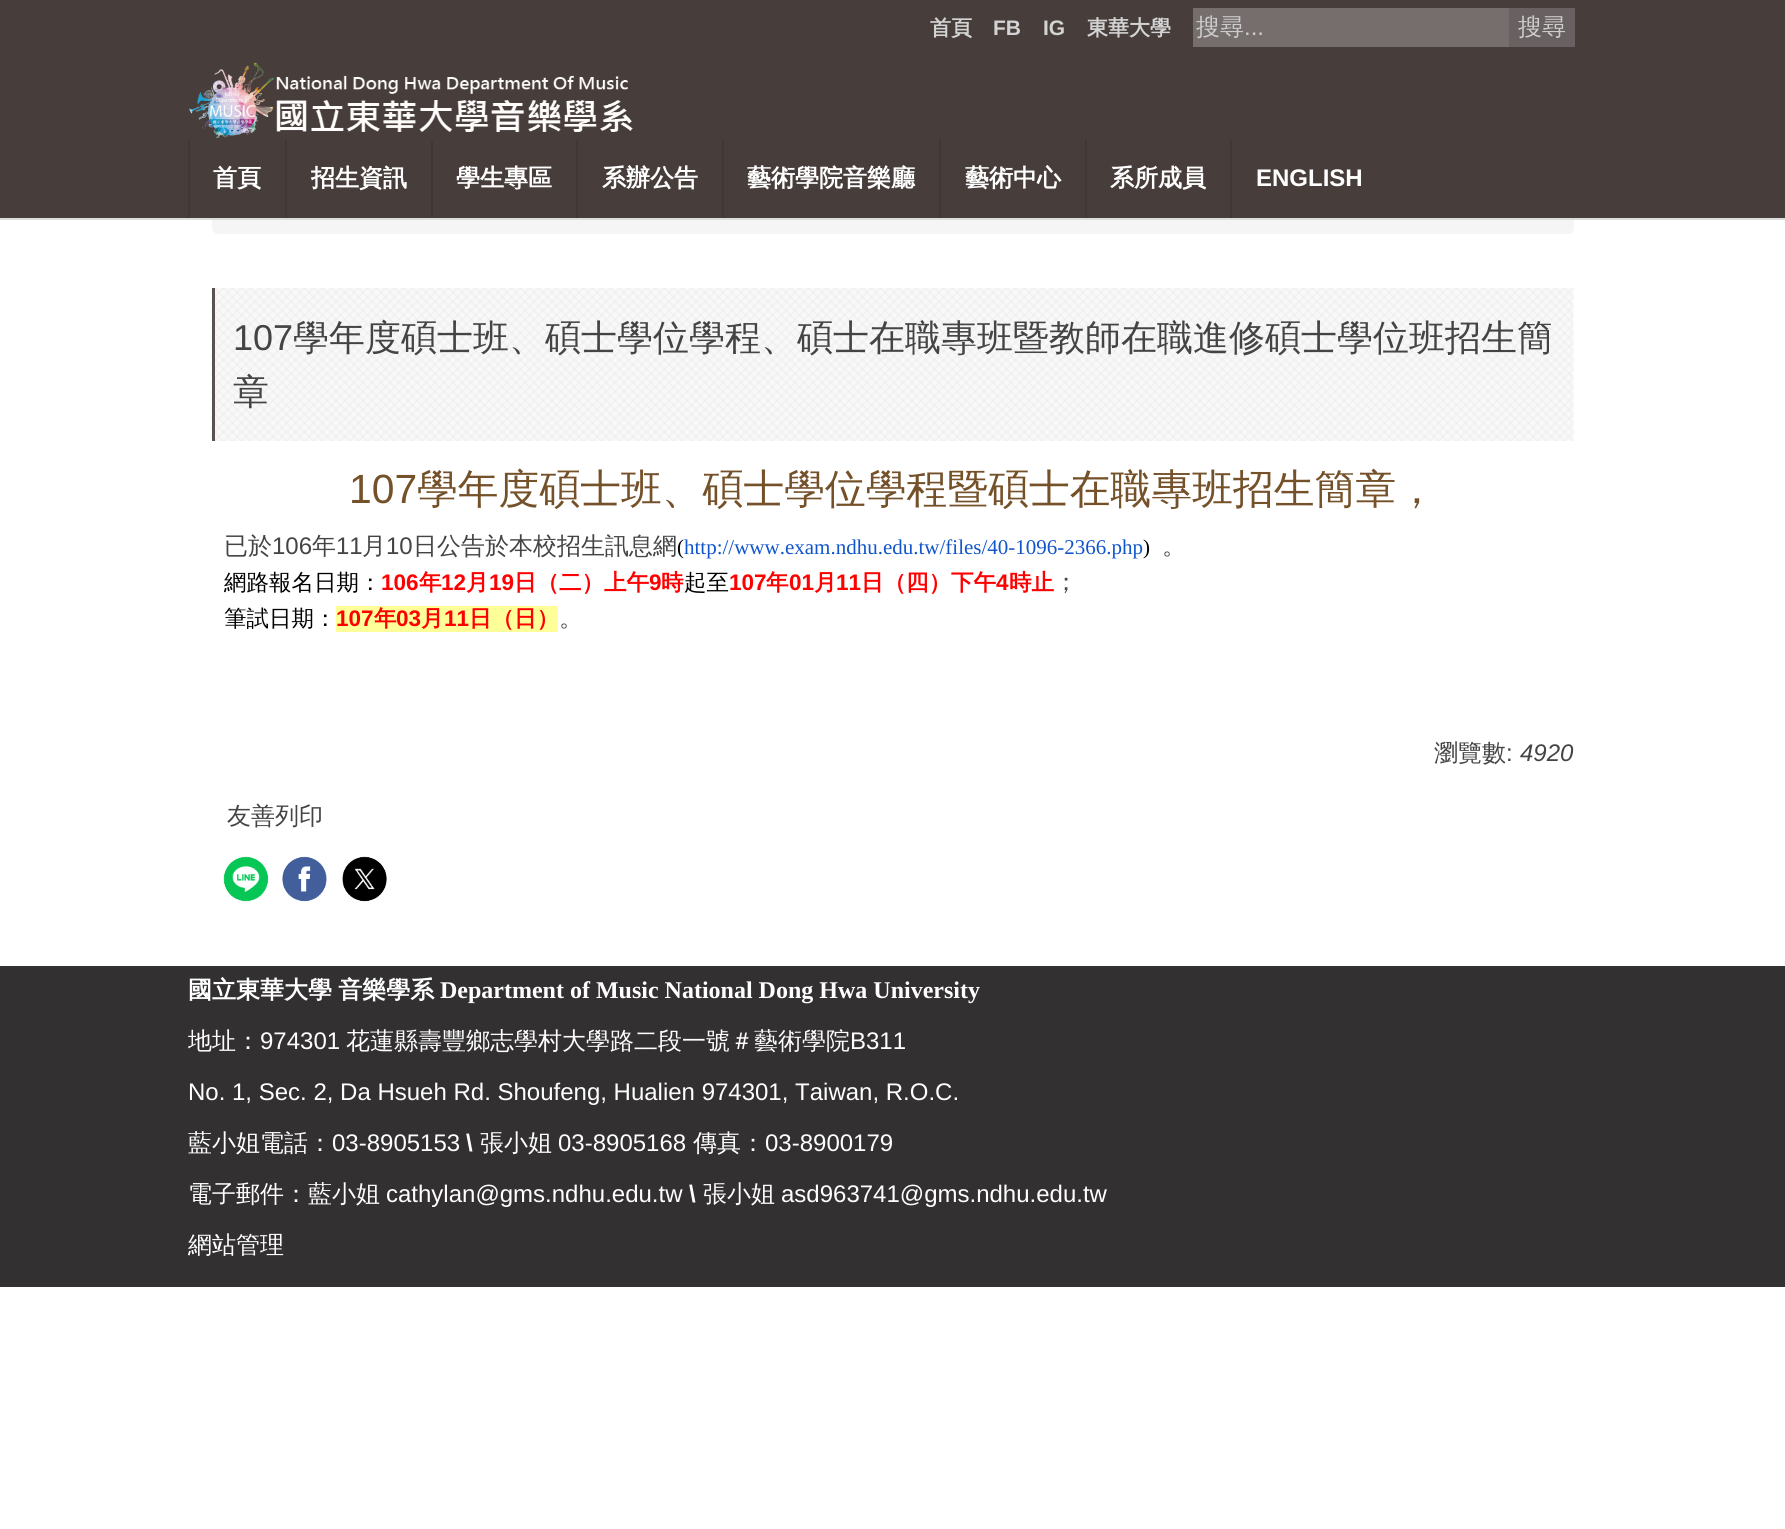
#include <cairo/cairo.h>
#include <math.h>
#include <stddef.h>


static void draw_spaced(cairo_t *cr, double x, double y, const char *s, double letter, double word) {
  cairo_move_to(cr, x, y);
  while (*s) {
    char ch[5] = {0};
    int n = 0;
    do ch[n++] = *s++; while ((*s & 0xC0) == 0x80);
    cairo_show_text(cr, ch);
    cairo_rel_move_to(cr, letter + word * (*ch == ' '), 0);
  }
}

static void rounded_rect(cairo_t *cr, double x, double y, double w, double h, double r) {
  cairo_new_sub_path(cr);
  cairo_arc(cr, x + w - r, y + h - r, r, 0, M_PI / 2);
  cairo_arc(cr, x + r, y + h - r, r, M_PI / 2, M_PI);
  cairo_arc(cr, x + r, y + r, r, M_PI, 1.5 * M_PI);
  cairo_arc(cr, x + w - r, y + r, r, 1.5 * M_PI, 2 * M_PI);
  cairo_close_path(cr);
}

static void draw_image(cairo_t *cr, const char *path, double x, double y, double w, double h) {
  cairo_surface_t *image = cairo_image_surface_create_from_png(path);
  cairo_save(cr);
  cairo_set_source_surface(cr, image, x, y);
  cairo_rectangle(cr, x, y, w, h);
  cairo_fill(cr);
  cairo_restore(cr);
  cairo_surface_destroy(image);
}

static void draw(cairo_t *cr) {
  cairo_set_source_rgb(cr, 1, 1, 1);
  cairo_paint(cr);
  cairo_set_source_rgb(cr, 245 / 255.0, 245 / 255.0, 245 / 255.0);
  rounded_rect(cr, 212, 174, 1362, 60, 6);
  cairo_fill(cr);
  cairo_set_source_rgb(cr, 71 / 255.0, 62 / 255.0, 59 / 255.0);
  cairo_rectangle(cr, 0, 0, 1785, 218);
  cairo_fill(cr);
  cairo_set_source_rgb(cr, 221 / 255.0, 221 / 255.0, 221 / 255.0);
  cairo_rectangle(cr, 0, 218, 1785, 2);
  cairo_fill(cr);
  cairo_set_source_rgb(cr, 117 / 255.0, 110 / 255.0, 109 / 255.0);
  cairo_rectangle(cr, 1193, 8, 316, 39);
  cairo_fill(cr);
  cairo_set_source_rgb(cr, 105 / 255.0, 97 / 255.0, 97 / 255.0);
  cairo_rectangle(cr, 1509, 8, 66, 39);
  cairo_fill(cr);
  draw_image(cr, "images/1.png", 189, 62, 444, 76);
  cairo_set_source_rgb(cr, 64 / 255.0, 56 / 255.0, 53 / 255.0);
  cairo_rectangle(cr, 188, 140, 2, 78);
  cairo_fill(cr);
  cairo_rectangle(cr, 285, 140, 2, 78);
  cairo_fill(cr);
  cairo_rectangle(cr, 431, 140, 2, 78);
  cairo_fill(cr);
  cairo_rectangle(cr, 576, 140, 2, 78);
  cairo_fill(cr);
  cairo_rectangle(cr, 722, 140, 2, 78);
  cairo_fill(cr);
  cairo_rectangle(cr, 939, 140, 2, 78);
  cairo_fill(cr);
  cairo_rectangle(cr, 1085, 140, 2, 78);
  cairo_fill(cr);
  cairo_rectangle(cr, 1230, 140, 2, 78);
  cairo_fill(cr);
  draw_image(cr, "images/2.png", 211, 288, 1363, 153);
  cairo_set_source_rgb(cr, 89 / 255.0, 82 / 255.0, 78 / 255.0);
  cairo_rectangle(cr, 212, 288, 3, 153);
  cairo_fill(cr);
  cairo_set_source_rgb(cr, 1, 1, 153 / 255.0);
  cairo_rectangle(cr, 336, 606, 222, 26);
  cairo_fill(cr);
  draw_image(cr, "images/3.png", 223, 856, 46, 46);
  draw_image(cr, "images/4.png", 282, 856, 45, 46);
  draw_image(cr, "images/5.png", 342, 856, 45, 46);
  cairo_set_source_rgb(cr, 50 / 255.0, 48 / 255.0, 49 / 255.0);
  cairo_rectangle(cr, 0, 966, 1785, 321);
  cairo_fill(cr);
  cairo_select_font_face(cr, "WenQuanYi Zen Hei", CAIRO_FONT_SLANT_NORMAL, CAIRO_FONT_WEIGHT_BOLD);
  cairo_set_font_size(cr, 21);
  cairo_set_source_rgb(cr, 211 / 255.0, 211 / 255.0, 211 / 255.0);
  cairo_move_to(cr, 930, 35);
  cairo_show_text(cr, "首頁");
  cairo_select_font_face(cr, "Liberation Sans", CAIRO_FONT_SLANT_NORMAL, CAIRO_FONT_WEIGHT_BOLD);
  cairo_move_to(cr, 993, 35);
  cairo_show_text(cr, "FB");
  cairo_move_to(cr, 1043, 35);
  cairo_show_text(cr, "IG");
  cairo_select_font_face(cr, "WenQuanYi Zen Hei", CAIRO_FONT_SLANT_NORMAL, CAIRO_FONT_WEIGHT_BOLD);
  cairo_move_to(cr, 1087, 35);
  cairo_show_text(cr, "東華大學");
  cairo_select_font_face(cr, "WenQuanYi Zen Hei Medium", CAIRO_FONT_SLANT_NORMAL, CAIRO_FONT_WEIGHT_NORMAL);
  cairo_set_font_size(cr, 24);
  cairo_set_source_rgb(cr, 204 / 255.0, 204 / 255.0, 204 / 255.0);
  cairo_move_to(cr, 1196, 35);
  cairo_show_text(cr, "搜尋");
  cairo_select_font_face(cr, "Liberation Sans", CAIRO_FONT_SLANT_NORMAL, CAIRO_FONT_WEIGHT_NORMAL);
  cairo_move_to(cr, 1244, 35);
  cairo_show_text(cr, "...");
  cairo_select_font_face(cr, "WenQuanYi Zen Hei Medium", CAIRO_FONT_SLANT_NORMAL, CAIRO_FONT_WEIGHT_NORMAL);
  cairo_move_to(cr, 1518, 35);
  cairo_show_text(cr, "搜尋");
  cairo_select_font_face(cr, "WenQuanYi Zen Hei", CAIRO_FONT_SLANT_NORMAL, CAIRO_FONT_WEIGHT_BOLD);
  cairo_set_source_rgb(cr, 1, 1, 1);
  cairo_move_to(cr, 213, 186);
  cairo_show_text(cr, "首頁");
  cairo_move_to(cr, 311, 186);
  cairo_show_text(cr, "招生資訊");
  cairo_move_to(cr, 456, 186);
  cairo_show_text(cr, "學生專區");
  cairo_move_to(cr, 602, 186);
  cairo_show_text(cr, "系辦公告");
  cairo_move_to(cr, 747, 186);
  cairo_show_text(cr, "藝術學院音樂廳");
  cairo_move_to(cr, 965, 186);
  cairo_show_text(cr, "藝術中心");
  cairo_move_to(cr, 1110, 186);
  cairo_show_text(cr, "系所成員");
  cairo_select_font_face(cr, "Liberation Sans", CAIRO_FONT_SLANT_NORMAL, CAIRO_FONT_WEIGHT_BOLD);
  cairo_move_to(cr, 1256, 186);
  cairo_show_text(cr, "ENGLISH");
  cairo_select_font_face(cr, "Liberation Sans", CAIRO_FONT_SLANT_NORMAL, CAIRO_FONT_WEIGHT_NORMAL);
  cairo_set_font_size(cr, 36);
  cairo_set_source_rgb(cr, 68 / 255.0, 68 / 255.0, 68 / 255.0);
  cairo_move_to(cr, 233, 350);
  cairo_show_text(cr, "107");
  cairo_select_font_face(cr, "WenQuanYi Zen Hei Medium", CAIRO_FONT_SLANT_NORMAL, CAIRO_FONT_WEIGHT_NORMAL);
  cairo_move_to(cr, 293, 350);
  cairo_show_text(cr, "學年度碩士班、碩士學位學程、碩士在職專班暨教師在職進修碩士學位班招生簡");
  cairo_move_to(cr, 233, 404);
  cairo_show_text(cr, "章");
  cairo_select_font_face(cr, "Liberation Sans", CAIRO_FONT_SLANT_NORMAL, CAIRO_FONT_WEIGHT_NORMAL);
  cairo_set_font_size(cr, 40.8);
  cairo_set_source_rgb(cr, 117 / 255.0, 81 / 255.0, 42 / 255.0);
  cairo_move_to(cr, 349, 503);
  cairo_show_text(cr, "107");
  cairo_select_font_face(cr, "WenQuanYi Zen Hei Medium", CAIRO_FONT_SLANT_NORMAL, CAIRO_FONT_WEIGHT_NORMAL);
  cairo_move_to(cr, 417, 503);
  cairo_show_text(cr, "學年度碩士班、碩士學位學程暨碩士在職專班招生簡章，");
  cairo_set_font_size(cr, 24);
  cairo_set_source_rgb(cr, 68 / 255.0, 68 / 255.0, 68 / 255.0);
  cairo_move_to(cr, 224, 554);
  cairo_show_text(cr, "已於");
  cairo_select_font_face(cr, "Liberation Sans", CAIRO_FONT_SLANT_NORMAL, CAIRO_FONT_WEIGHT_NORMAL);
  cairo_move_to(cr, 272, 554);
  cairo_show_text(cr, "106");
  cairo_select_font_face(cr, "WenQuanYi Zen Hei Medium", CAIRO_FONT_SLANT_NORMAL, CAIRO_FONT_WEIGHT_NORMAL);
  cairo_move_to(cr, 312, 554);
  cairo_show_text(cr, "年");
  cairo_select_font_face(cr, "Liberation Sans", CAIRO_FONT_SLANT_NORMAL, CAIRO_FONT_WEIGHT_NORMAL);
  cairo_move_to(cr, 336, 554);
  cairo_show_text(cr, "11");
  cairo_select_font_face(cr, "WenQuanYi Zen Hei Medium", CAIRO_FONT_SLANT_NORMAL, CAIRO_FONT_WEIGHT_NORMAL);
  cairo_move_to(cr, 362, 554);
  cairo_show_text(cr, "月");
  cairo_select_font_face(cr, "Liberation Sans", CAIRO_FONT_SLANT_NORMAL, CAIRO_FONT_WEIGHT_NORMAL);
  cairo_move_to(cr, 386, 554);
  cairo_show_text(cr, "10");
  cairo_select_font_face(cr, "WenQuanYi Zen Hei Medium", CAIRO_FONT_SLANT_NORMAL, CAIRO_FONT_WEIGHT_NORMAL);
  cairo_move_to(cr, 413, 554);
  cairo_show_text(cr, "日公告於本校招生訊息網");
  cairo_select_font_face(cr, "Liberation Serif", CAIRO_FONT_SLANT_NORMAL, CAIRO_FONT_WEIGHT_NORMAL);
  cairo_set_font_size(cr, 21);
  cairo_set_source_rgb(cr, 0, 0, 0);
  cairo_move_to(cr, 677, 554);
  cairo_show_text(cr, "(");
  cairo_set_source_rgb(cr, 17 / 255.0, 85 / 255.0, 204 / 255.0);
  cairo_move_to(cr, 684, 554);
  cairo_show_text(cr, "http://www.exam.ndhu.edu.tw/files/40-1096-2366.php");
  cairo_set_source_rgb(cr, 0, 0, 0);
  cairo_move_to(cr, 1143, 554);
  cairo_show_text(cr, ")");
  cairo_select_font_face(cr, "WenQuanYi Zen Hei Medium", CAIRO_FONT_SLANT_NORMAL, CAIRO_FONT_WEIGHT_NORMAL);
  cairo_set_font_size(cr, 24);
  cairo_set_source_rgb(cr, 68 / 255.0, 68 / 255.0, 68 / 255.0);
  cairo_move_to(cr, 1162, 554);
  cairo_show_text(cr, "。");
  cairo_set_font_size(cr, 22.5);
  cairo_set_source_rgb(cr, 0, 0, 0);
  cairo_move_to(cr, 224, 590);
  cairo_show_text(cr, "網路報名日期：");
  cairo_select_font_face(cr, "Liberation Sans", CAIRO_FONT_SLANT_NORMAL, CAIRO_FONT_WEIGHT_BOLD);
  cairo_set_source_rgb(cr, 1, 0, 0);
  cairo_move_to(cr, 381, 590);
  cairo_show_text(cr, "106");
  cairo_select_font_face(cr, "WenQuanYi Zen Hei", CAIRO_FONT_SLANT_NORMAL, CAIRO_FONT_WEIGHT_BOLD);
  cairo_move_to(cr, 419, 590);
  cairo_show_text(cr, "年");
  cairo_select_font_face(cr, "Liberation Sans", CAIRO_FONT_SLANT_NORMAL, CAIRO_FONT_WEIGHT_BOLD);
  cairo_move_to(cr, 441, 590);
  cairo_show_text(cr, "12");
  cairo_select_font_face(cr, "WenQuanYi Zen Hei", CAIRO_FONT_SLANT_NORMAL, CAIRO_FONT_WEIGHT_BOLD);
  cairo_move_to(cr, 466, 590);
  cairo_show_text(cr, "月");
  cairo_select_font_face(cr, "Liberation Sans", CAIRO_FONT_SLANT_NORMAL, CAIRO_FONT_WEIGHT_BOLD);
  cairo_move_to(cr, 489, 590);
  cairo_show_text(cr, "19");
  cairo_select_font_face(cr, "WenQuanYi Zen Hei", CAIRO_FONT_SLANT_NORMAL, CAIRO_FONT_WEIGHT_BOLD);
  cairo_move_to(cr, 514, 590);
  cairo_show_text(cr, "日（二）上午");
  cairo_select_font_face(cr, "Liberation Sans", CAIRO_FONT_SLANT_NORMAL, CAIRO_FONT_WEIGHT_BOLD);
  cairo_move_to(cr, 649, 590);
  cairo_show_text(cr, "9");
  cairo_select_font_face(cr, "WenQuanYi Zen Hei", CAIRO_FONT_SLANT_NORMAL, CAIRO_FONT_WEIGHT_BOLD);
  cairo_move_to(cr, 661, 590);
  cairo_show_text(cr, "時");
  cairo_select_font_face(cr, "WenQuanYi Zen Hei Medium", CAIRO_FONT_SLANT_NORMAL, CAIRO_FONT_WEIGHT_NORMAL);
  cairo_set_source_rgb(cr, 0, 0, 0);
  cairo_move_to(cr, 684, 590);
  cairo_show_text(cr, "起至");
  cairo_select_font_face(cr, "Liberation Sans", CAIRO_FONT_SLANT_NORMAL, CAIRO_FONT_WEIGHT_BOLD);
  cairo_set_source_rgb(cr, 1, 0, 0);
  cairo_move_to(cr, 729, 590);
  cairo_show_text(cr, "107");
  cairo_select_font_face(cr, "WenQuanYi Zen Hei", CAIRO_FONT_SLANT_NORMAL, CAIRO_FONT_WEIGHT_BOLD);
  cairo_move_to(cr, 766, 590);
  cairo_show_text(cr, "年");
  cairo_select_font_face(cr, "Liberation Sans", CAIRO_FONT_SLANT_NORMAL, CAIRO_FONT_WEIGHT_BOLD);
  cairo_move_to(cr, 789, 590);
  cairo_show_text(cr, "01");
  cairo_select_font_face(cr, "WenQuanYi Zen Hei", CAIRO_FONT_SLANT_NORMAL, CAIRO_FONT_WEIGHT_BOLD);
  cairo_move_to(cr, 814, 590);
  cairo_show_text(cr, "月");
  cairo_select_font_face(cr, "Liberation Sans", CAIRO_FONT_SLANT_NORMAL, CAIRO_FONT_WEIGHT_BOLD);
  cairo_move_to(cr, 836, 590);
  cairo_show_text(cr, "11");
  cairo_select_font_face(cr, "WenQuanYi Zen Hei", CAIRO_FONT_SLANT_NORMAL, CAIRO_FONT_WEIGHT_BOLD);
  cairo_move_to(cr, 861, 590);
  cairo_show_text(cr, "日（四）下午");
  cairo_select_font_face(cr, "Liberation Sans", CAIRO_FONT_SLANT_NORMAL, CAIRO_FONT_WEIGHT_BOLD);
  cairo_move_to(cr, 996, 590);
  cairo_show_text(cr, "4");
  cairo_select_font_face(cr, "WenQuanYi Zen Hei", CAIRO_FONT_SLANT_NORMAL, CAIRO_FONT_WEIGHT_BOLD);
  cairo_move_to(cr, 1009, 590);
  cairo_show_text(cr, "時止");
  cairo_select_font_face(cr, "WenQuanYi Zen Hei Medium", CAIRO_FONT_SLANT_NORMAL, CAIRO_FONT_WEIGHT_NORMAL);
  cairo_set_font_size(cr, 24);
  cairo_set_source_rgb(cr, 68 / 255.0, 68 / 255.0, 68 / 255.0);
  cairo_move_to(cr, 1054, 590);
  cairo_show_text(cr, "；");
  cairo_set_font_size(cr, 22.5);
  cairo_set_source_rgb(cr, 0, 0, 0);
  cairo_move_to(cr, 224, 626);
  cairo_show_text(cr, "筆試日期：");
  cairo_select_font_face(cr, "Liberation Sans", CAIRO_FONT_SLANT_NORMAL, CAIRO_FONT_WEIGHT_BOLD);
  cairo_set_source_rgb(cr, 1, 0, 0);
  cairo_move_to(cr, 336, 626);
  cairo_show_text(cr, "107");
  cairo_select_font_face(cr, "WenQuanYi Zen Hei", CAIRO_FONT_SLANT_NORMAL, CAIRO_FONT_WEIGHT_BOLD);
  cairo_move_to(cr, 374, 626);
  cairo_show_text(cr, "年");
  cairo_select_font_face(cr, "Liberation Sans", CAIRO_FONT_SLANT_NORMAL, CAIRO_FONT_WEIGHT_BOLD);
  cairo_move_to(cr, 396, 626);
  cairo_show_text(cr, "03");
  cairo_select_font_face(cr, "WenQuanYi Zen Hei", CAIRO_FONT_SLANT_NORMAL, CAIRO_FONT_WEIGHT_BOLD);
  cairo_move_to(cr, 421, 626);
  cairo_show_text(cr, "月");
  cairo_select_font_face(cr, "Liberation Sans", CAIRO_FONT_SLANT_NORMAL, CAIRO_FONT_WEIGHT_BOLD);
  cairo_move_to(cr, 444, 626);
  cairo_show_text(cr, "11");
  cairo_select_font_face(cr, "WenQuanYi Zen Hei", CAIRO_FONT_SLANT_NORMAL, CAIRO_FONT_WEIGHT_BOLD);
  cairo_move_to(cr, 469, 626);
  cairo_show_text(cr, "日（日）");
  cairo_select_font_face(cr, "WenQuanYi Zen Hei Medium", CAIRO_FONT_SLANT_NORMAL, CAIRO_FONT_WEIGHT_NORMAL);
  cairo_set_font_size(cr, 24);
  cairo_set_source_rgb(cr, 68 / 255.0, 68 / 255.0, 68 / 255.0);
  cairo_move_to(cr, 559, 626);
  cairo_show_text(cr, "。");
  cairo_move_to(cr, 1434, 761);
  cairo_show_text(cr, "瀏覽數");
  cairo_select_font_face(cr, "Liberation Sans", CAIRO_FONT_SLANT_NORMAL, CAIRO_FONT_WEIGHT_NORMAL);
  cairo_move_to(cr, 1506, 761);
  cairo_show_text(cr, ":");
  cairo_select_font_face(cr, "Liberation Sans", CAIRO_FONT_SLANT_ITALIC, CAIRO_FONT_WEIGHT_NORMAL);
  cairo_move_to(cr, 1520, 761);
  cairo_show_text(cr, "4920");
  cairo_select_font_face(cr, "WenQuanYi Zen Hei Medium", CAIRO_FONT_SLANT_NORMAL, CAIRO_FONT_WEIGHT_NORMAL);
  cairo_move_to(cr, 227, 824);
  cairo_show_text(cr, "友善列印");
  cairo_select_font_face(cr, "WenQuanYi Zen Hei", CAIRO_FONT_SLANT_NORMAL, CAIRO_FONT_WEIGHT_BOLD);
  cairo_set_source_rgb(cr, 1, 1, 1);
  draw_spaced(cr, 188, 998, "國立東華大學 音樂學系", 0, -1);
  cairo_select_font_face(cr, "Liberation Serif", CAIRO_FONT_SLANT_NORMAL, CAIRO_FONT_WEIGHT_BOLD);
  cairo_move_to(cr, 440, 998);
  cairo_show_text(cr, "Department of Music National Dong Hwa University");
  cairo_select_font_face(cr, "WenQuanYi Zen Hei Medium", CAIRO_FONT_SLANT_NORMAL, CAIRO_FONT_WEIGHT_NORMAL);
  cairo_move_to(cr, 188, 1049);
  cairo_show_text(cr, "地址：");
  cairo_select_font_face(cr, "Liberation Sans", CAIRO_FONT_SLANT_NORMAL, CAIRO_FONT_WEIGHT_NORMAL);
  cairo_move_to(cr, 260, 1049);
  cairo_show_text(cr, "974301");
  cairo_select_font_face(cr, "WenQuanYi Zen Hei Medium", CAIRO_FONT_SLANT_NORMAL, CAIRO_FONT_WEIGHT_NORMAL);
  cairo_move_to(cr, 346, 1049);
  cairo_show_text(cr, "花蓮縣壽豐鄉志學村大學路二段一號＃藝術學院");
  cairo_select_font_face(cr, "Liberation Sans", CAIRO_FONT_SLANT_NORMAL, CAIRO_FONT_WEIGHT_NORMAL);
  cairo_move_to(cr, 850, 1049);
  cairo_show_text(cr, "B311");
  cairo_move_to(cr, 188, 1100);
  cairo_show_text(cr, "No. 1, Sec. 2, Da Hsueh Rd. Shoufeng, Hualien 974301, Taiwan, R.O.C.");
  cairo_select_font_face(cr, "WenQuanYi Zen Hei Medium", CAIRO_FONT_SLANT_NORMAL, CAIRO_FONT_WEIGHT_NORMAL);
  cairo_move_to(cr, 188, 1151);
  cairo_show_text(cr, "藍小姐電話：");
  cairo_select_font_face(cr, "Liberation Sans", CAIRO_FONT_SLANT_NORMAL, CAIRO_FONT_WEIGHT_NORMAL);
  cairo_move_to(cr, 332, 1151);
  cairo_show_text(cr, "03-8905153");
  cairo_select_font_face(cr, "Liberation Sans", CAIRO_FONT_SLANT_NORMAL, CAIRO_FONT_WEIGHT_BOLD);
  cairo_move_to(cr, 466, 1151);
  cairo_show_text(cr, "\\");
  cairo_select_font_face(cr, "WenQuanYi Zen Hei Medium", CAIRO_FONT_SLANT_NORMAL, CAIRO_FONT_WEIGHT_NORMAL);
  cairo_move_to(cr, 480, 1151);
  cairo_show_text(cr, "張小姐");
  cairo_select_font_face(cr, "Liberation Sans", CAIRO_FONT_SLANT_NORMAL, CAIRO_FONT_WEIGHT_NORMAL);
  cairo_move_to(cr, 558, 1151);
  cairo_show_text(cr, "03-8905168");
  cairo_select_font_face(cr, "WenQuanYi Zen Hei Medium", CAIRO_FONT_SLANT_NORMAL, CAIRO_FONT_WEIGHT_NORMAL);
  cairo_move_to(cr, 693, 1151);
  cairo_show_text(cr, "傳真：");
  cairo_select_font_face(cr, "Liberation Sans", CAIRO_FONT_SLANT_NORMAL, CAIRO_FONT_WEIGHT_NORMAL);
  cairo_move_to(cr, 765, 1151);
  cairo_show_text(cr, "03-8900179");
  cairo_select_font_face(cr, "WenQuanYi Zen Hei Medium", CAIRO_FONT_SLANT_NORMAL, CAIRO_FONT_WEIGHT_NORMAL);
  cairo_move_to(cr, 188, 1202);
  cairo_show_text(cr, "電子郵件：藍小姐");
  cairo_select_font_face(cr, "Liberation Sans", CAIRO_FONT_SLANT_NORMAL, CAIRO_FONT_WEIGHT_NORMAL);
  cairo_move_to(cr, 386, 1202);
  cairo_show_text(cr, "cathylan@gms.ndhu.edu.tw");
  cairo_select_font_face(cr, "Liberation Sans", CAIRO_FONT_SLANT_NORMAL, CAIRO_FONT_WEIGHT_BOLD);
  cairo_move_to(cr, 689, 1202);
  cairo_show_text(cr, "\\");
  cairo_select_font_face(cr, "WenQuanYi Zen Hei Medium", CAIRO_FONT_SLANT_NORMAL, CAIRO_FONT_WEIGHT_NORMAL);
  cairo_move_to(cr, 703, 1202);
  cairo_show_text(cr, "張小姐");
  cairo_select_font_face(cr, "Liberation Sans", CAIRO_FONT_SLANT_NORMAL, CAIRO_FONT_WEIGHT_NORMAL);
  cairo_move_to(cr, 781, 1202);
  cairo_show_text(cr, "asd963741@gms.ndhu.edu.tw");
  cairo_select_font_face(cr, "WenQuanYi Zen Hei Medium", CAIRO_FONT_SLANT_NORMAL, CAIRO_FONT_WEIGHT_NORMAL);
  cairo_move_to(cr, 188, 1253);
  cairo_show_text(cr, "網站管理");
}

int main(void) {
  cairo_surface_t *surface = cairo_image_surface_create(CAIRO_FORMAT_RGB24, 1785, 1529);
  cairo_t *cr = cairo_create(surface);
  cairo_font_options_t *options = cairo_font_options_create();
  cairo_font_options_set_hint_metrics(options, CAIRO_HINT_METRICS_OFF);
  cairo_font_options_set_hint_style(options, CAIRO_HINT_STYLE_NONE);
  cairo_set_font_options(cr, options);
  cairo_set_miter_limit(cr, 4);
  draw(cr);
  cairo_surface_write_to_png(surface, "out.png");
  cairo_font_options_destroy(options);
  cairo_destroy(cr);
  cairo_surface_destroy(surface);
  return 0;
}
